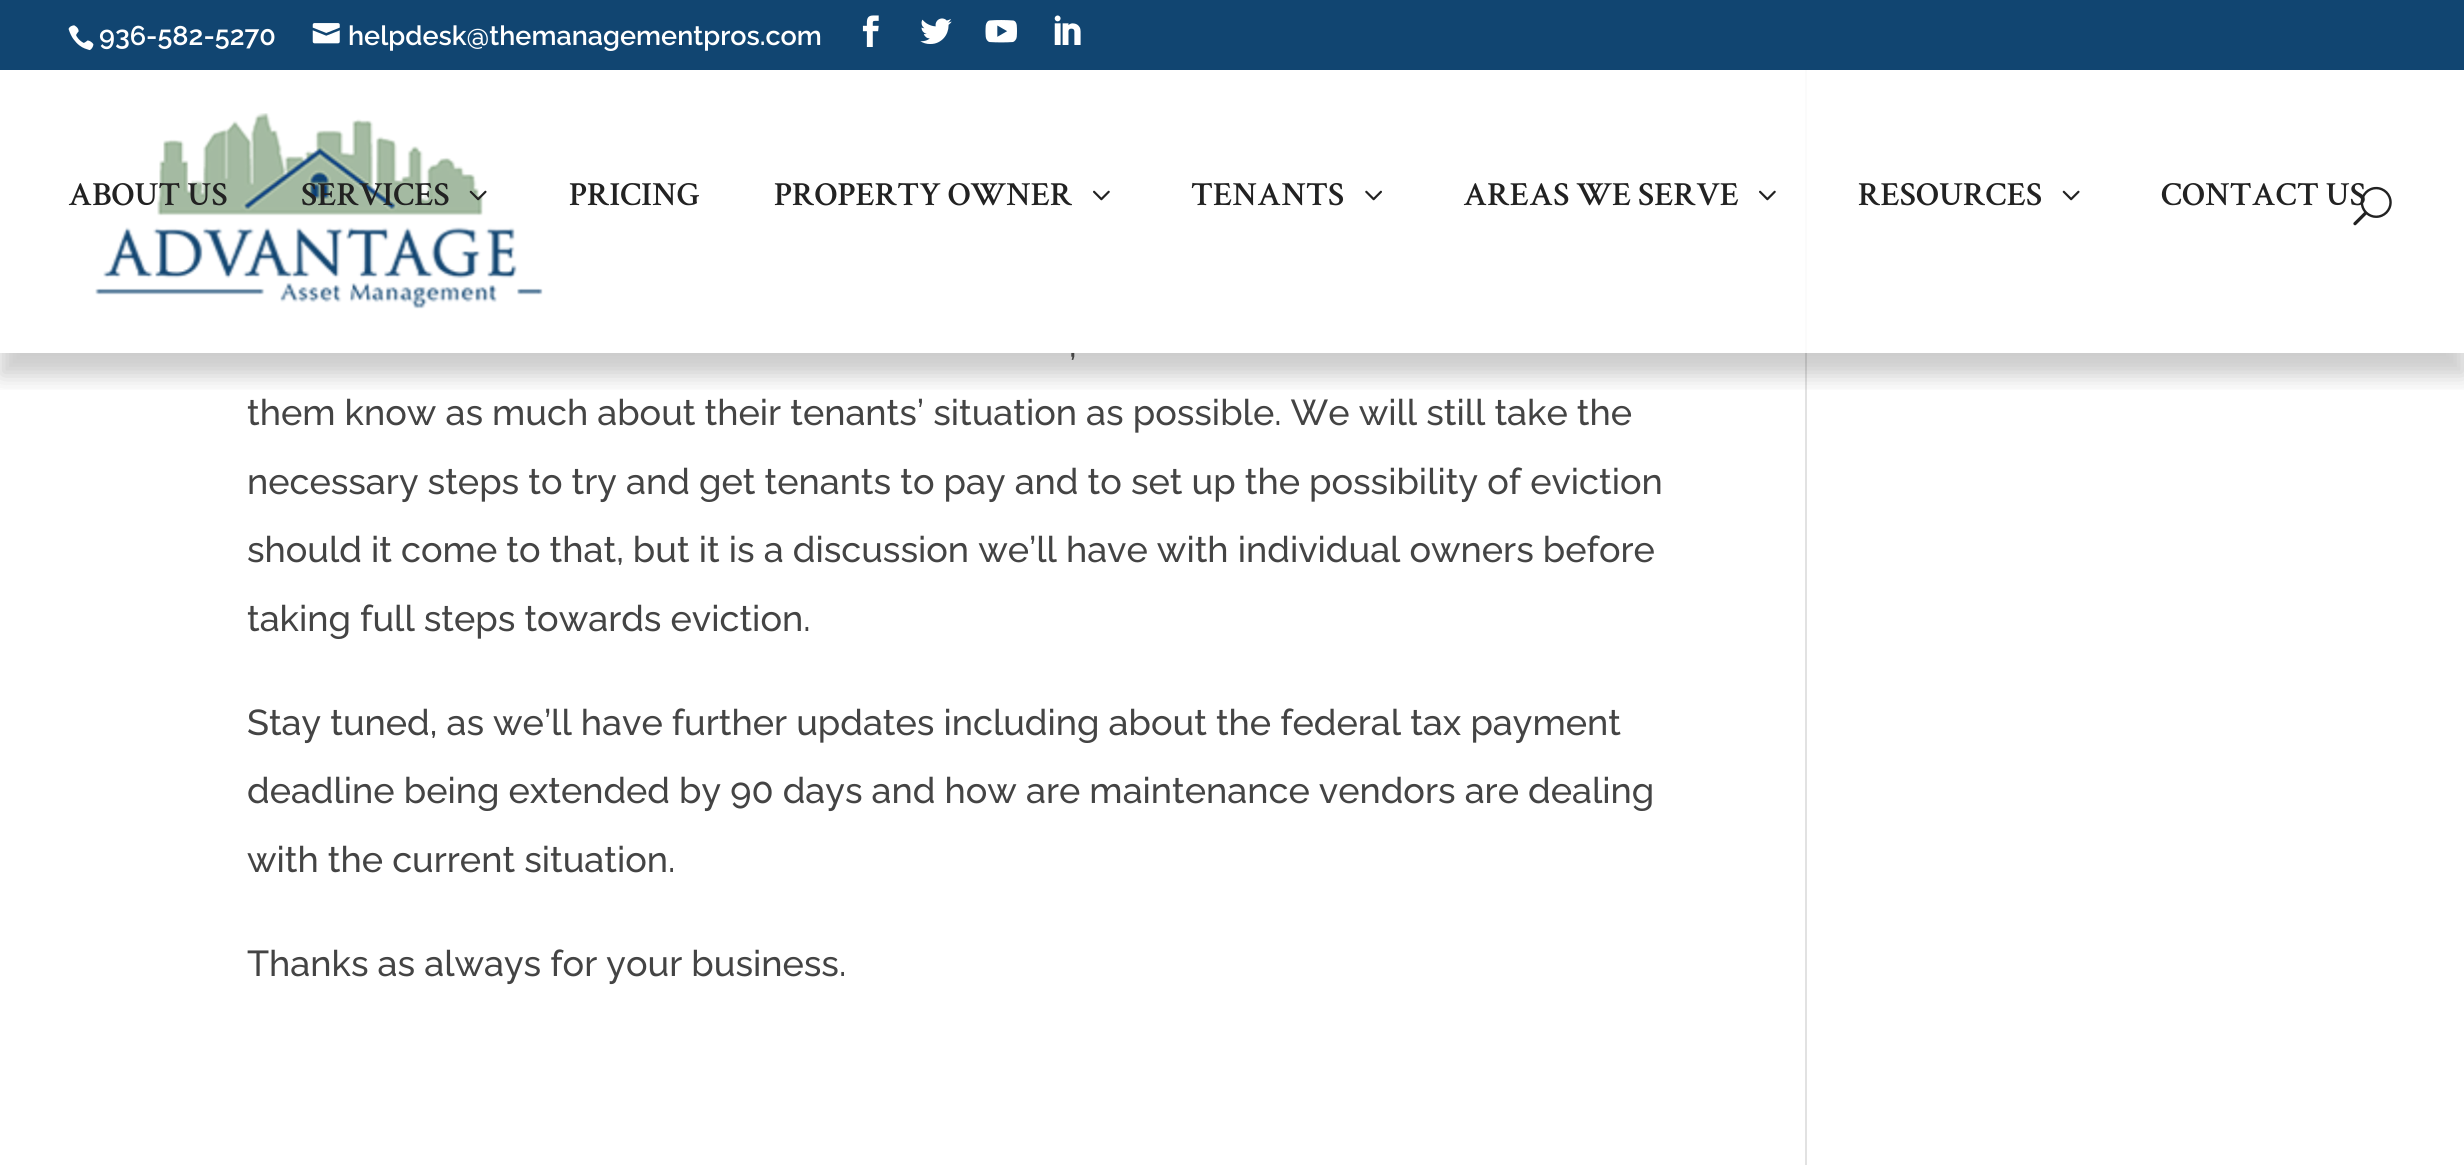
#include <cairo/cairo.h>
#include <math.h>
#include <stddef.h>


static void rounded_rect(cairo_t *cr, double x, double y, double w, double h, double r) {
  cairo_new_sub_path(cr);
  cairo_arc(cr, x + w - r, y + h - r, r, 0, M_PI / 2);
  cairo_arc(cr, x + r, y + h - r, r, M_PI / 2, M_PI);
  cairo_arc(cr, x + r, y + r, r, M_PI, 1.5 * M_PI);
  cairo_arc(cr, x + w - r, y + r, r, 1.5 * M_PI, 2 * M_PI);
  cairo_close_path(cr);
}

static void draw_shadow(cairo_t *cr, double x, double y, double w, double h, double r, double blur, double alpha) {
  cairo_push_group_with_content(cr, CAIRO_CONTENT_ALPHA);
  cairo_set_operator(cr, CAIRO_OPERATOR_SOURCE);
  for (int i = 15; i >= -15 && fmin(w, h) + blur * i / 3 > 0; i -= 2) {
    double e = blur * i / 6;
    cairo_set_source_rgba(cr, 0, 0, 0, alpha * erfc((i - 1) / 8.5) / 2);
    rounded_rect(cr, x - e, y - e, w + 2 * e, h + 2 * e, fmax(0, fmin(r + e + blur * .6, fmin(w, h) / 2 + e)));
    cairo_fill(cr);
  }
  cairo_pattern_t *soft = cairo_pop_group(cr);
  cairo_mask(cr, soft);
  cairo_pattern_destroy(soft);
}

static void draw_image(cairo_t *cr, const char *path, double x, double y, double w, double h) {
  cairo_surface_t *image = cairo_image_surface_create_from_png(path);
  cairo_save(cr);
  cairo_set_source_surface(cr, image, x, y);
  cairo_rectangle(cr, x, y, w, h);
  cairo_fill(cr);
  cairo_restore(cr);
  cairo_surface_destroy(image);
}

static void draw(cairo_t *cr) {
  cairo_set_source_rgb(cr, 1, 1, 1);
  cairo_paint(cr);
  cairo_set_source_rgb(cr, 226 / 255.0, 226 / 255.0, 226 / 255.0);
  cairo_rectangle(cr, 1805, 70, 2, 1095);
  cairo_fill(cr);
  cairo_save(cr);
  cairo_rectangle(cr, 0, 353, 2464, 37);
  cairo_clip(cr);
  cairo_set_source_rgb(cr, 0, 0, 0);
  draw_shadow(cr, 0, 90, 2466, 286, 0, 11, 0.2);
  cairo_restore(cr);
  cairo_set_source_rgb(cr, 17 / 255.0, 69 / 255.0, 113 / 255.0);
  cairo_rectangle(cr, 0, 0, 2464, 70);
  cairo_fill(cr);
  draw_image(cr, "images/1.png", 68, 25, 26, 26);
  draw_image(cr, "images/2.png", 312, 23, 28, 21);
  draw_image(cr, "images/3.png", 862, 15, 17, 32);
  draw_image(cr, "images/4.png", 920, 18, 32, 26);
  draw_image(cr, "images/5.png", 985, 20, 32, 23);
  draw_image(cr, "images/6.png", 1054, 15, 27, 30);
  cairo_set_source_rgba(cr, 1, 1, 1, 0.87);
  cairo_rectangle(cr, 1805, 70, 2, 283);
  cairo_fill(cr);
  draw_image(cr, "images/7.png", 95, 113, 448, 196);
  draw_image(cr, "images/8.png", 469, 190, 18, 11);
  draw_image(cr, "images/9.png", 1093, 190, 17, 11);
  draw_image(cr, "images/10.png", 1365, 190, 17, 11);
  draw_image(cr, "images/9.png", 1759, 190, 17, 11);
  draw_image(cr, "images/11.png", 2062, 190, 18, 11);
  cairo_select_font_face(cr, "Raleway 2 Thin", CAIRO_FONT_SLANT_NORMAL, CAIRO_FONT_WEIGHT_NORMAL);
  cairo_set_font_size(cr, 27);
  cairo_set_source_rgb(cr, 1, 1, 1);
  cairo_move_to(cr, 99, 45);
  cairo_show_text(cr, "936-582-5270");
  cairo_move_to(cr, 348, 45);
  cairo_show_text(cr, "helpdesk@themanagementpros.com");
  cairo_select_font_face(cr, "Crimson Text SemiBold", CAIRO_FONT_SLANT_NORMAL, CAIRO_FONT_WEIGHT_NORMAL);
  cairo_set_font_size(cr, 33.75);
  cairo_set_source_rgb(cr, 34 / 255.0, 34 / 255.0, 34 / 255.0);
  cairo_move_to(cr, 68, 205);
  cairo_show_text(cr, "ABOUT US");
  cairo_move_to(cr, 301, 205);
  cairo_show_text(cr, "SERVICES");
  cairo_move_to(cr, 569, 205);
  cairo_show_text(cr, "PRICING");
  cairo_move_to(cr, 774, 205);
  cairo_show_text(cr, "PROPERTY OWNER");
  cairo_move_to(cr, 1191, 205);
  cairo_show_text(cr, "TENANTS");
  cairo_move_to(cr, 1463, 205);
  cairo_show_text(cr, "AREAS WE SERVE");
  cairo_move_to(cr, 1858, 205);
  cairo_show_text(cr, "RESOURCES");
  cairo_move_to(cr, 2161, 205);
  cairo_show_text(cr, "CONTACT US");
  draw_image(cr, "images/12.png", 2353, 186, 39, 40);
  cairo_select_font_face(cr, "Raleway Thin", CAIRO_FONT_SLANT_NORMAL, CAIRO_FONT_WEIGHT_NORMAL);
  cairo_set_font_size(cr, 36);
  cairo_set_source_rgb(cr, 68 / 255.0, 68 / 255.0, 68 / 255.0);
  cairo_move_to(cr, 1069, 357);
  cairo_show_text(cr, ",");
  cairo_move_to(cr, 247, 425);
  cairo_show_text(cr, "them know as much about their tenants’ situation as possible. We will still take the");
  cairo_move_to(cr, 247, 494);
  cairo_show_text(cr, "necessary steps to try and get tenants to pay and to set up the possibility of eviction");
  cairo_move_to(cr, 247, 562);
  cairo_show_text(cr, "should it come to that, but it is a discussion we’ll have with individual owners before");
  cairo_move_to(cr, 247, 631);
  cairo_show_text(cr, "taking full steps towards eviction.");
  cairo_move_to(cr, 247, 735);
  cairo_show_text(cr, "Stay tuned, as we’ll have further updates including about the federal tax payment");
  cairo_move_to(cr, 247, 803);
  cairo_show_text(cr, "deadline being extended by 90 days and how are maintenance vendors are dealing");
  cairo_move_to(cr, 247, 872);
  cairo_show_text(cr, "with the current situation.");
  cairo_move_to(cr, 247, 976);
  cairo_show_text(cr, "Thanks as always for your business.");
}

int main(void) {
  cairo_surface_t *surface = cairo_image_surface_create(CAIRO_FORMAT_RGB24, 2464, 1165);
  cairo_t *cr = cairo_create(surface);
  cairo_font_options_t *options = cairo_font_options_create();
  cairo_font_options_set_hint_metrics(options, CAIRO_HINT_METRICS_OFF);
  cairo_font_options_set_hint_style(options, CAIRO_HINT_STYLE_NONE);
  cairo_set_font_options(cr, options);
  cairo_set_miter_limit(cr, 4);
  draw(cr);
  cairo_surface_write_to_png(surface, "out.png");
  cairo_font_options_destroy(options);
  cairo_destroy(cr);
  cairo_surface_destroy(surface);
  return 0;
}
